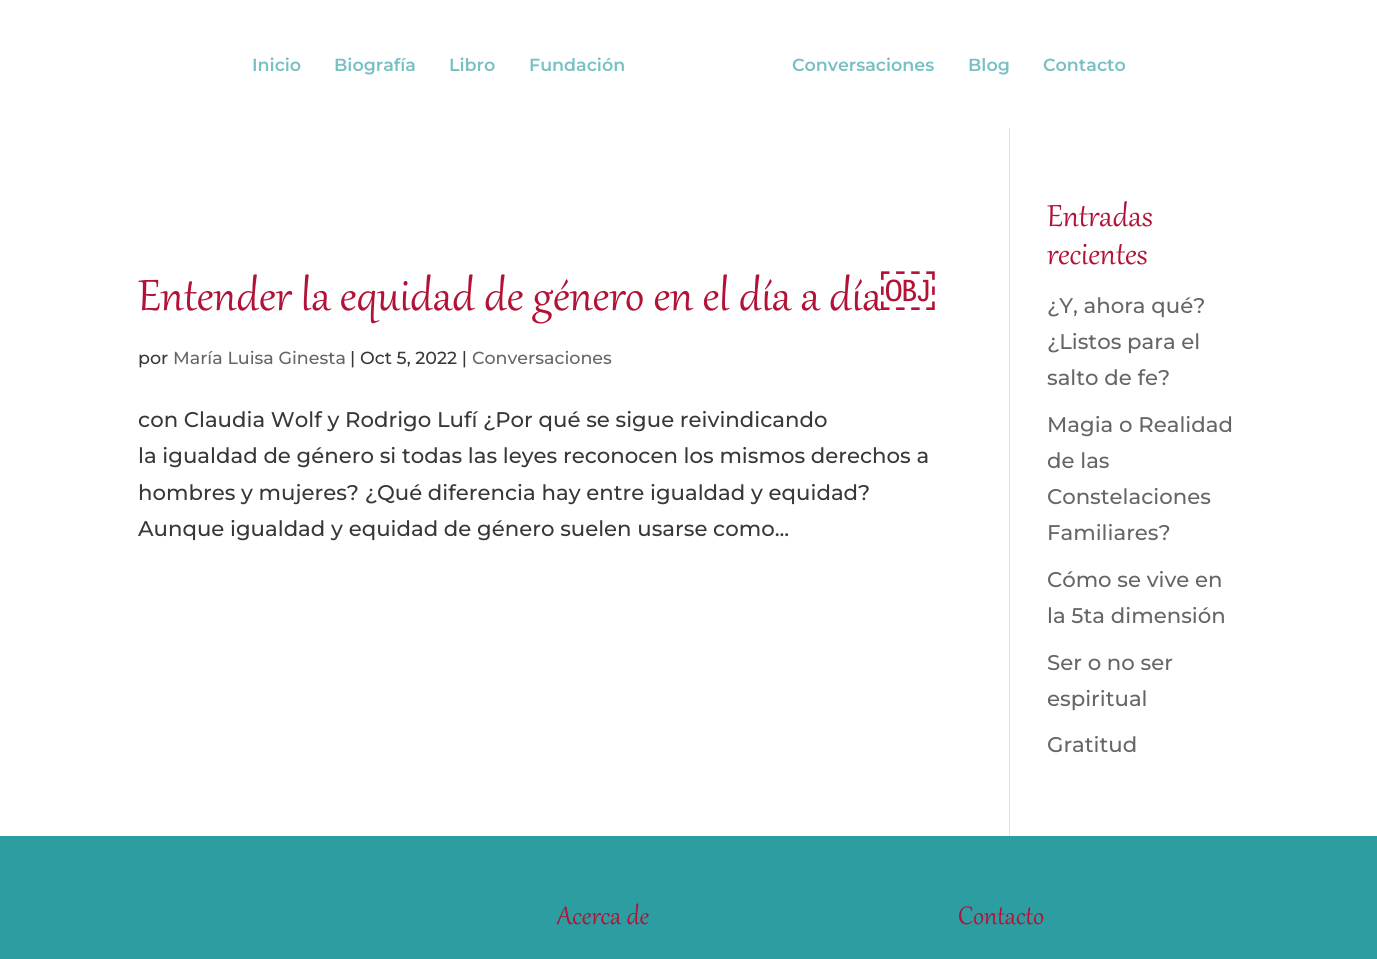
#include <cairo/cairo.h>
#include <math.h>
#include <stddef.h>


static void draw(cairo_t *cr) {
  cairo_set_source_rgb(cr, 1, 1, 1);
  cairo_paint(cr);
  cairo_set_source_rgb(cr, 226 / 255.0, 226 / 255.0, 226 / 255.0);
  cairo_rectangle(cr, 1009, 128, 1, 708);
  cairo_fill(cr);
  cairo_set_source_rgb(cr, 44 / 255.0, 157 / 255.0, 161 / 255.0);
  cairo_rectangle(cr, 0, 836, 1377, 123);
  cairo_fill(cr);
  cairo_select_font_face(cr, "Montserrat SemiBold", CAIRO_FONT_SLANT_NORMAL, CAIRO_FONT_WEIGHT_NORMAL);
  cairo_set_font_size(cr, 17.5);
  cairo_set_source_rgb(cr, 120 / 255.0, 192 / 255.0, 195 / 255.0);
  cairo_move_to(cr, 252, 71);
  cairo_show_text(cr, "Inicio");
  cairo_move_to(cr, 334, 71);
  cairo_show_text(cr, "Biografía");
  cairo_move_to(cr, 449, 71);
  cairo_show_text(cr, "Libro");
  cairo_move_to(cr, 529, 71);
  cairo_show_text(cr, "Fundación");
  cairo_move_to(cr, 792, 71);
  cairo_show_text(cr, "Conversaciones");
  cairo_move_to(cr, 968, 71);
  cairo_show_text(cr, "Blog");
  cairo_move_to(cr, 1043, 71);
  cairo_show_text(cr, "Contacto");
  cairo_select_font_face(cr, "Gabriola", CAIRO_FONT_SLANT_NORMAL, CAIRO_FONT_WEIGHT_NORMAL);
  cairo_set_font_size(cr, 53.75);
  cairo_set_source_rgb(cr, 178 / 255.0, 18 / 255.0, 54 / 255.0);
  cairo_move_to(cr, 138, 310);
  cairo_show_text(cr, "Entender la equidad de género en el día a día");
  cairo_select_font_face(cr, "Liberation Sans", CAIRO_FONT_SLANT_NORMAL, CAIRO_FONT_WEIGHT_NORMAL);
  cairo_move_to(cr, 881, 310);
  cairo_show_text(cr, "￼");
  cairo_select_font_face(cr, "Montserrat Medium", CAIRO_FONT_SLANT_NORMAL, CAIRO_FONT_WEIGHT_NORMAL);
  cairo_set_font_size(cr, 17.5);
  cairo_set_source_rgb(cr, 56 / 255.0, 56 / 255.0, 56 / 255.0);
  cairo_move_to(cr, 138, 364);
  cairo_show_text(cr, "por");
  cairo_set_source_rgb(cr, 102 / 255.0, 102 / 255.0, 102 / 255.0);
  cairo_move_to(cr, 173, 364);
  cairo_show_text(cr, "María Luisa Ginesta");
  cairo_set_source_rgb(cr, 56 / 255.0, 56 / 255.0, 56 / 255.0);
  cairo_move_to(cr, 350, 364);
  cairo_show_text(cr, "| Oct 5, 2022 |");
  cairo_set_source_rgb(cr, 102 / 255.0, 102 / 255.0, 102 / 255.0);
  cairo_move_to(cr, 472, 364);
  cairo_show_text(cr, "Conversaciones");
  cairo_set_font_size(cr, 21.25);
  cairo_set_source_rgb(cr, 56 / 255.0, 56 / 255.0, 56 / 255.0);
  cairo_move_to(cr, 138, 427);
  cairo_show_text(cr, "con Claudia Wolf y Rodrigo Lufí ¿Por qué se sigue reivindicando");
  cairo_move_to(cr, 138, 463);
  cairo_show_text(cr, "la igualdad de género si todas las leyes reconocen los mismos derechos a");
  cairo_move_to(cr, 138, 500);
  cairo_show_text(cr, "hombres y mujeres? ¿Qué diferencia hay entre igualdad y equidad?");
  cairo_move_to(cr, 138, 536);
  cairo_show_text(cr, "Aunque igualdad y equidad de género suelen usarse como...");
  cairo_select_font_face(cr, "Gabriola", CAIRO_FONT_SLANT_NORMAL, CAIRO_FONT_WEIGHT_NORMAL);
  cairo_set_font_size(cr, 37.5);
  cairo_set_source_rgb(cr, 178 / 255.0, 18 / 255.0, 54 / 255.0);
  cairo_move_to(cr, 1047, 226);
  cairo_show_text(cr, "Entradas");
  cairo_move_to(cr, 1047, 264);
  cairo_show_text(cr, "recientes");
  cairo_select_font_face(cr, "Montserrat Medium", CAIRO_FONT_SLANT_NORMAL, CAIRO_FONT_WEIGHT_NORMAL);
  cairo_set_font_size(cr, 21.25);
  cairo_set_source_rgb(cr, 102 / 255.0, 102 / 255.0, 102 / 255.0);
  cairo_move_to(cr, 1047, 313);
  cairo_show_text(cr, "¿Y, ahora qué?");
  cairo_move_to(cr, 1047, 349);
  cairo_show_text(cr, "¿Listos para el");
  cairo_move_to(cr, 1047, 385);
  cairo_show_text(cr, "salto de fe?");
  cairo_move_to(cr, 1047, 432);
  cairo_show_text(cr, "Magia o Realidad");
  cairo_move_to(cr, 1047, 468);
  cairo_show_text(cr, "de las");
  cairo_move_to(cr, 1047, 504);
  cairo_show_text(cr, "Constelaciones");
  cairo_move_to(cr, 1047, 540);
  cairo_show_text(cr, "Familiares?");
  cairo_move_to(cr, 1047, 587);
  cairo_show_text(cr, "Cómo se vive en");
  cairo_move_to(cr, 1047, 623);
  cairo_show_text(cr, "la 5ta dimensión");
  cairo_move_to(cr, 1047, 670);
  cairo_show_text(cr, "Ser o no ser");
  cairo_move_to(cr, 1047, 706);
  cairo_show_text(cr, "espiritual");
  cairo_move_to(cr, 1047, 752);
  cairo_show_text(cr, "Gratitud");
  cairo_select_font_face(cr, "Gabriola", CAIRO_FONT_SLANT_NORMAL, CAIRO_FONT_WEIGHT_NORMAL);
  cairo_set_font_size(cr, 31);
  cairo_set_source_rgb(cr, 178 / 255.0, 18 / 255.0, 54 / 255.0);
  cairo_move_to(cr, 557, 924);
  cairo_show_text(cr, "Acerca de");
  cairo_move_to(cr, 958, 924);
  cairo_show_text(cr, "Contacto");
}

int main(void) {
  cairo_surface_t *surface = cairo_image_surface_create(CAIRO_FORMAT_RGB24, 1377, 959);
  cairo_t *cr = cairo_create(surface);
  cairo_font_options_t *options = cairo_font_options_create();
  cairo_font_options_set_hint_metrics(options, CAIRO_HINT_METRICS_OFF);
  cairo_font_options_set_hint_style(options, CAIRO_HINT_STYLE_NONE);
  cairo_set_font_options(cr, options);
  cairo_set_miter_limit(cr, 4);
  draw(cr);
  cairo_surface_write_to_png(surface, "out.png");
  cairo_font_options_destroy(options);
  cairo_destroy(cr);
  cairo_surface_destroy(surface);
  return 0;
}
